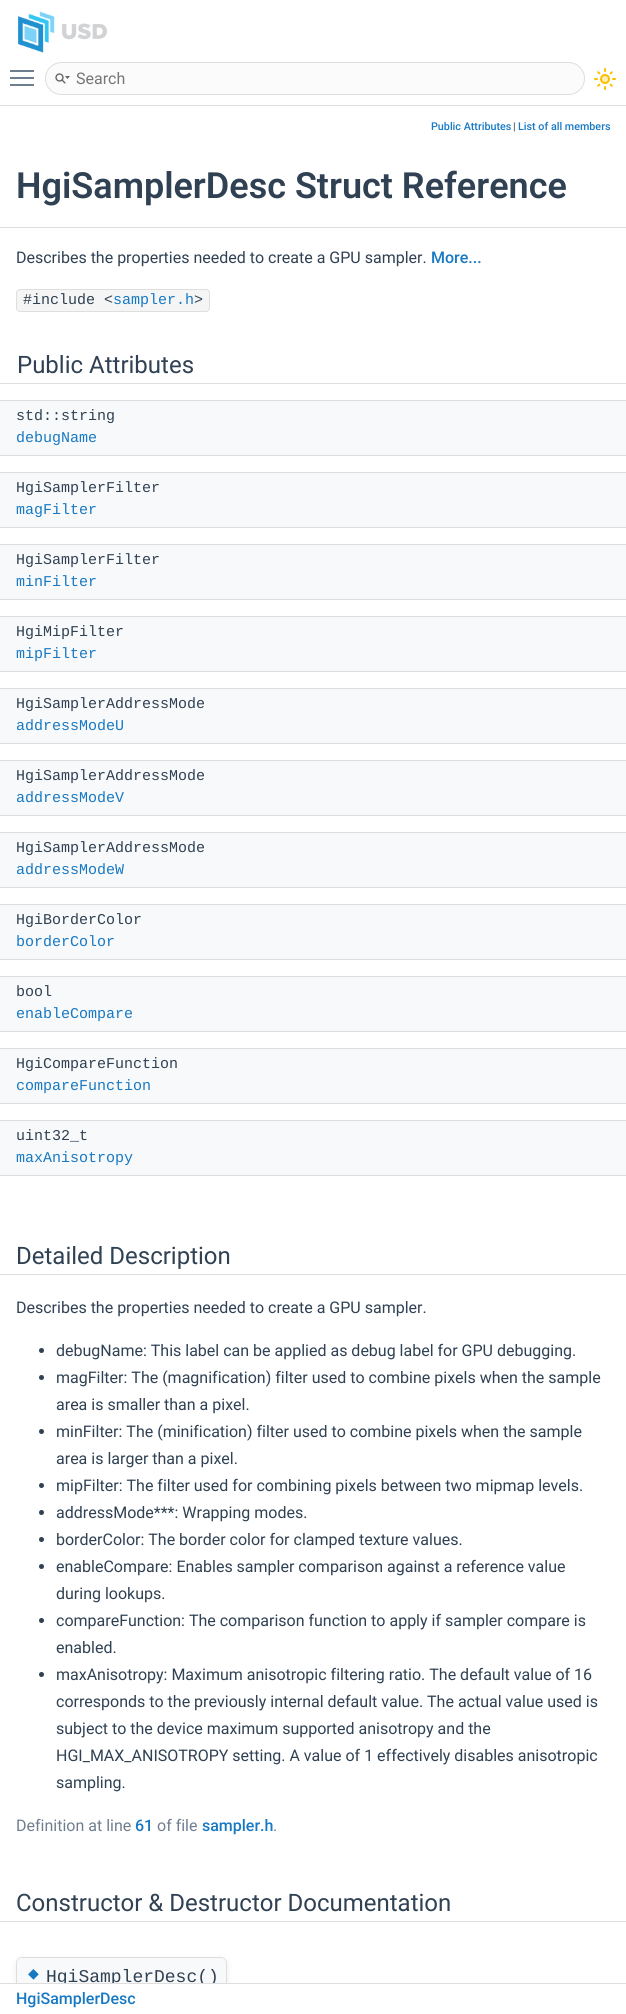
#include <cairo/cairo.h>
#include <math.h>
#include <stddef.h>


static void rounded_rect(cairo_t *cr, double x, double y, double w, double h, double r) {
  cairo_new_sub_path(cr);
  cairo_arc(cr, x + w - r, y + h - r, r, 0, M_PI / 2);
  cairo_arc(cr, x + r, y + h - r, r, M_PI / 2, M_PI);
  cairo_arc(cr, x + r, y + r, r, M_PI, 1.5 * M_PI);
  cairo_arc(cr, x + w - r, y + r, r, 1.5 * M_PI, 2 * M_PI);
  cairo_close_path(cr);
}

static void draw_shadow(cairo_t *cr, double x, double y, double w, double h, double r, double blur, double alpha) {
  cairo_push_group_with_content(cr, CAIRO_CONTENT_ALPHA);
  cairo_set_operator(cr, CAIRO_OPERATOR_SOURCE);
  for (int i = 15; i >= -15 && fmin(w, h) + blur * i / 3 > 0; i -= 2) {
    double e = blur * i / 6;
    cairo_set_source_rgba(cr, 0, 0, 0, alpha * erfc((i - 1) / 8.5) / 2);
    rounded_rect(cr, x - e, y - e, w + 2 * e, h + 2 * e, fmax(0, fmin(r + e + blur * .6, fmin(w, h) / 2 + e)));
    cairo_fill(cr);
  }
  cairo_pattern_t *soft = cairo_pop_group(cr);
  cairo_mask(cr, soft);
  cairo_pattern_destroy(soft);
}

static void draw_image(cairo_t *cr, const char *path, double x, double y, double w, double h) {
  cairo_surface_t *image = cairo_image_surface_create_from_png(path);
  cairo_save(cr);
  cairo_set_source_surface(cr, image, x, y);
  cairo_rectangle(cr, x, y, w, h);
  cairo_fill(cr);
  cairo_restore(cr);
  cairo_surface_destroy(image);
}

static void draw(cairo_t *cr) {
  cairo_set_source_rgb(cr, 1, 1, 1);
  cairo_paint(cr);
  cairo_set_source_rgb(cr, 222 / 255.0, 222 / 255.0, 222 / 255.0);
  cairo_rectangle(cr, 0, 105, 626, 1);
  cairo_fill(cr);
  draw_image(cr, "images/1.png", 18, 11, 89, 42);
  cairo_set_source_rgb(cr, 111 / 255.0, 126 / 255.0, 142 / 255.0);
  cairo_rectangle(cr, 10, 77, 24, 2);
  cairo_fill(cr);
  cairo_rectangle(cr, 10, 70, 24, 2);
  cairo_fill(cr);
  cairo_rectangle(cr, 10, 84, 24, 2);
  cairo_fill(cr);
  cairo_set_source_rgb(cr, 251 / 255.0, 251 / 255.0, 251 / 255.0);
  rounded_rect(cr, 45.5, 62.5, 539, 32, 16);
  cairo_fill_preserve(cr);
  cairo_set_source_rgb(cr, 222 / 255.0, 222 / 255.0, 222 / 255.0);
  cairo_set_line_width(cr, 1);
  cairo_stroke(cr);
  draw_image(cr, "images/2.png", 55, 73, 15, 11);
  draw_image(cr, "images/3.png", 594, 68, 22, 22);
  cairo_rectangle(cr, 0, 227, 626, 1);
  cairo_fill(cr);
  cairo_rectangle(cr, 113, 289, 81, 1);
  cairo_fill(cr);
  cairo_set_source_rgb(cr, 245 / 255.0, 245 / 255.0, 245 / 255.0);
  cairo_new_path(cr);
  cairo_move_to(cr, 20, 289);
  cairo_line_to(cr, 113, 289);
  cairo_line_to(cr, 113, 312);
  cairo_line_to(cr, 20, 312);
  cairo_curve_to(cr, 18, 312, 16, 310, 16, 308);
  cairo_line_to(cr, 16, 293);
  cairo_curve_to(cr, 16, 291, 18, 289, 20, 289);
  cairo_close_path(cr);
  cairo_fill(cr);
  cairo_set_source_rgb(cr, 222 / 255.0, 222 / 255.0, 222 / 255.0);
  cairo_set_fill_rule(cr, CAIRO_FILL_RULE_EVEN_ODD);
  cairo_new_path(cr);
  cairo_move_to(cr, 20, 289);
  cairo_line_to(cr, 113, 289);
  cairo_line_to(cr, 113, 312);
  cairo_line_to(cr, 20, 312);
  cairo_curve_to(cr, 18, 312, 16, 310, 16, 308);
  cairo_line_to(cr, 16, 293);
  cairo_curve_to(cr, 16, 291, 18, 289, 20, 289);
  cairo_close_path(cr);
  cairo_move_to(cr, 20, 290);
  cairo_line_to(cr, 113, 290);
  cairo_line_to(cr, 113, 311);
  cairo_line_to(cr, 20, 311);
  cairo_curve_to(cr, 18, 311, 17, 310, 17, 308);
  cairo_line_to(cr, 17, 293);
  cairo_curve_to(cr, 17, 291, 18, 290, 20, 290);
  cairo_close_path(cr);
  cairo_fill(cr);
  cairo_set_source_rgb(cr, 245 / 255.0, 245 / 255.0, 245 / 255.0);
  cairo_rectangle(cr, 113, 290, 81, 21);
  cairo_fill(cr);
  cairo_set_source_rgb(cr, 222 / 255.0, 222 / 255.0, 222 / 255.0);
  cairo_rectangle(cr, 113, 311, 81, 1);
  cairo_fill(cr);
  cairo_set_source_rgb(cr, 245 / 255.0, 245 / 255.0, 245 / 255.0);
  cairo_new_path(cr);
  cairo_move_to(cr, 194, 289);
  cairo_line_to(cr, 206, 289);
  cairo_curve_to(cr, 208, 289, 210, 291, 210, 293);
  cairo_line_to(cr, 210, 308);
  cairo_curve_to(cr, 210, 310, 208, 312, 206, 312);
  cairo_line_to(cr, 194, 312);
  cairo_close_path(cr);
  cairo_fill(cr);
  cairo_set_source_rgb(cr, 222 / 255.0, 222 / 255.0, 222 / 255.0);
  cairo_new_path(cr);
  cairo_move_to(cr, 194, 289);
  cairo_line_to(cr, 206, 289);
  cairo_curve_to(cr, 208, 289, 210, 291, 210, 293);
  cairo_line_to(cr, 210, 308);
  cairo_curve_to(cr, 210, 310, 208, 312, 206, 312);
  cairo_line_to(cr, 194, 312);
  cairo_close_path(cr);
  cairo_move_to(cr, 194, 290);
  cairo_line_to(cr, 206, 290);
  cairo_curve_to(cr, 207.5, 290, 209, 291.5, 209, 293);
  cairo_line_to(cr, 209, 308);
  cairo_curve_to(cr, 209, 309.5, 207.5, 311, 206, 311);
  cairo_line_to(cr, 194, 311);
  cairo_close_path(cr);
  cairo_fill(cr);
  cairo_set_fill_rule(cr, CAIRO_FILL_RULE_WINDING);
  cairo_new_path(cr);
  cairo_move_to(cr, -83, 344);
  cairo_line_to(cr, -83, 384);
  cairo_line_to(cr, 509, 384);
  cairo_line_to(cr, 509, 383);
  cairo_line_to(cr, 17, 383);
  cairo_line_to(cr, 17, 344);
  cairo_close_path(cr);
  cairo_fill(cr);
  cairo_new_path(cr);
  cairo_move_to(cr, 117, 383);
  cairo_line_to(cr, 117, 384);
  cairo_line_to(cr, 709, 384);
  cairo_line_to(cr, 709, 344);
  cairo_line_to(cr, 609, 344);
  cairo_line_to(cr, 609, 383);
  cairo_close_path(cr);
  cairo_fill(cr);
  cairo_set_source_rgb(cr, 1, 1, 1);
  cairo_rectangle(cr, 0, 344, 17, 39);
  cairo_fill(cr);
  cairo_rectangle(cr, 609, 344, 17, 39);
  cairo_fill(cr);
  cairo_set_source_rgb(cr, 248 / 255.0, 249 / 255.0, 250 / 255.0);
  cairo_rectangle(cr, 0, 401, 626, 54);
  cairo_fill(cr);
  cairo_set_source_rgb(cr, 222 / 255.0, 222 / 255.0, 222 / 255.0);
  cairo_rectangle(cr, 0, 400, 626, 1);
  cairo_fill(cr);
  cairo_rectangle(cr, 0, 455, 626, 1);
  cairo_fill(cr);
  cairo_set_source_rgb(cr, 248 / 255.0, 249 / 255.0, 250 / 255.0);
  cairo_rectangle(cr, 0, 473, 626, 54);
  cairo_fill(cr);
  cairo_set_source_rgb(cr, 222 / 255.0, 222 / 255.0, 222 / 255.0);
  cairo_rectangle(cr, 0, 472, 626, 1);
  cairo_fill(cr);
  cairo_rectangle(cr, 0, 527, 626, 1);
  cairo_fill(cr);
  cairo_set_source_rgb(cr, 248 / 255.0, 249 / 255.0, 250 / 255.0);
  cairo_rectangle(cr, 0, 545, 626, 54);
  cairo_fill(cr);
  cairo_set_source_rgb(cr, 222 / 255.0, 222 / 255.0, 222 / 255.0);
  cairo_rectangle(cr, 0, 544, 626, 1);
  cairo_fill(cr);
  cairo_rectangle(cr, 0, 599, 626, 1);
  cairo_fill(cr);
  cairo_set_source_rgb(cr, 248 / 255.0, 249 / 255.0, 250 / 255.0);
  cairo_rectangle(cr, 0, 617, 626, 54);
  cairo_fill(cr);
  cairo_set_source_rgb(cr, 222 / 255.0, 222 / 255.0, 222 / 255.0);
  cairo_rectangle(cr, 0, 616, 626, 1);
  cairo_fill(cr);
  cairo_rectangle(cr, 0, 671, 626, 1);
  cairo_fill(cr);
  cairo_set_source_rgb(cr, 248 / 255.0, 249 / 255.0, 250 / 255.0);
  cairo_rectangle(cr, 0, 689, 626, 54);
  cairo_fill(cr);
  cairo_set_source_rgb(cr, 222 / 255.0, 222 / 255.0, 222 / 255.0);
  cairo_rectangle(cr, 0, 688, 626, 1);
  cairo_fill(cr);
  cairo_rectangle(cr, 0, 743, 626, 1);
  cairo_fill(cr);
  cairo_set_source_rgb(cr, 248 / 255.0, 249 / 255.0, 250 / 255.0);
  cairo_rectangle(cr, 0, 761, 626, 54);
  cairo_fill(cr);
  cairo_set_source_rgb(cr, 222 / 255.0, 222 / 255.0, 222 / 255.0);
  cairo_rectangle(cr, 0, 760, 626, 1);
  cairo_fill(cr);
  cairo_rectangle(cr, 0, 815, 626, 1);
  cairo_fill(cr);
  cairo_set_source_rgb(cr, 248 / 255.0, 249 / 255.0, 250 / 255.0);
  cairo_rectangle(cr, 0, 833, 626, 54);
  cairo_fill(cr);
  cairo_set_source_rgb(cr, 222 / 255.0, 222 / 255.0, 222 / 255.0);
  cairo_rectangle(cr, 0, 832, 626, 1);
  cairo_fill(cr);
  cairo_rectangle(cr, 0, 887, 626, 1);
  cairo_fill(cr);
  cairo_set_source_rgb(cr, 248 / 255.0, 249 / 255.0, 250 / 255.0);
  cairo_rectangle(cr, 0, 905, 626, 54);
  cairo_fill(cr);
  cairo_set_source_rgb(cr, 222 / 255.0, 222 / 255.0, 222 / 255.0);
  cairo_rectangle(cr, 0, 904, 626, 1);
  cairo_fill(cr);
  cairo_rectangle(cr, 0, 959, 626, 1);
  cairo_fill(cr);
  cairo_set_source_rgb(cr, 248 / 255.0, 249 / 255.0, 250 / 255.0);
  cairo_rectangle(cr, 0, 977, 626, 54);
  cairo_fill(cr);
  cairo_set_source_rgb(cr, 222 / 255.0, 222 / 255.0, 222 / 255.0);
  cairo_rectangle(cr, 0, 976, 626, 1);
  cairo_fill(cr);
  cairo_rectangle(cr, 0, 1031, 626, 1);
  cairo_fill(cr);
  cairo_set_source_rgb(cr, 248 / 255.0, 249 / 255.0, 250 / 255.0);
  cairo_rectangle(cr, 0, 1049, 626, 54);
  cairo_fill(cr);
  cairo_set_source_rgb(cr, 222 / 255.0, 222 / 255.0, 222 / 255.0);
  cairo_rectangle(cr, 0, 1048, 626, 1);
  cairo_fill(cr);
  cairo_rectangle(cr, 0, 1103, 626, 1);
  cairo_fill(cr);
  cairo_set_source_rgb(cr, 248 / 255.0, 249 / 255.0, 250 / 255.0);
  cairo_rectangle(cr, 0, 1121, 626, 54);
  cairo_fill(cr);
  cairo_set_source_rgb(cr, 222 / 255.0, 222 / 255.0, 222 / 255.0);
  cairo_rectangle(cr, 0, 1120, 626, 1);
  cairo_fill(cr);
  cairo_rectangle(cr, 0, 1175, 626, 1);
  cairo_fill(cr);
  cairo_new_path(cr);
  cairo_move_to(cr, -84, 1235);
  cairo_line_to(cr, -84, 1275);
  cairo_line_to(cr, 510, 1275);
  cairo_line_to(cr, 510, 1274);
  cairo_line_to(cr, 16, 1274);
  cairo_line_to(cr, 16, 1235);
  cairo_close_path(cr);
  cairo_fill(cr);
  cairo_new_path(cr);
  cairo_move_to(cr, 116, 1274);
  cairo_line_to(cr, 116, 1275);
  cairo_line_to(cr, 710, 1275);
  cairo_line_to(cr, 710, 1235);
  cairo_line_to(cr, 610, 1235);
  cairo_line_to(cr, 610, 1274);
  cairo_close_path(cr);
  cairo_fill(cr);
  cairo_set_source_rgb(cr, 1, 1, 1);
  cairo_rectangle(cr, 0, 1235, 16, 39);
  cairo_fill(cr);
  cairo_rectangle(cr, 610, 1235, 16, 39);
  cairo_fill(cr);
  cairo_set_source_rgb(cr, 47 / 255.0, 65 / 255.0, 83 / 255.0);
  cairo_arc(cr, 41.5, 1350.5, 2.5, 0, 2 * M_PI);
  cairo_fill(cr);
  cairo_arc(cr, 41.5, 1377.5, 2.5, 0, 2 * M_PI);
  cairo_fill(cr);
  cairo_arc(cr, 41.5, 1431.5, 2.5, 0, 2 * M_PI);
  cairo_fill(cr);
  cairo_arc(cr, 41.5, 1485.5, 2.5, 0, 2 * M_PI);
  cairo_fill(cr);
  cairo_arc(cr, 41.5, 1512.5, 2.5, 0, 2 * M_PI);
  cairo_fill(cr);
  cairo_arc(cr, 41.5, 1539.5, 2.5, 0, 2 * M_PI);
  cairo_fill(cr);
  cairo_arc(cr, 41.5, 1566.5, 2.5, 0, 2 * M_PI);
  cairo_fill(cr);
  cairo_arc(cr, 41.5, 1620.5, 2.5, 0, 2 * M_PI);
  cairo_fill(cr);
  cairo_arc(cr, 41.5, 1674.5, 2.5, 0, 2 * M_PI);
  cairo_fill(cr);
  cairo_set_source_rgb(cr, 222 / 255.0, 222 / 255.0, 222 / 255.0);
  cairo_new_path(cr);
  cairo_move_to(cr, -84, 1882);
  cairo_line_to(cr, -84, 1922);
  cairo_line_to(cr, 510, 1922);
  cairo_line_to(cr, 510, 1921);
  cairo_line_to(cr, 16, 1921);
  cairo_line_to(cr, 16, 1882);
  cairo_close_path(cr);
  cairo_fill(cr);
  cairo_new_path(cr);
  cairo_move_to(cr, 116, 1921);
  cairo_line_to(cr, 116, 1922);
  cairo_line_to(cr, 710, 1922);
  cairo_line_to(cr, 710, 1882);
  cairo_line_to(cr, 610, 1882);
  cairo_line_to(cr, 610, 1921);
  cairo_close_path(cr);
  cairo_fill(cr);
  cairo_set_source_rgb(cr, 1, 1, 1);
  cairo_rectangle(cr, 0, 1882, 16, 39);
  cairo_fill(cr);
  cairo_rectangle(cr, 610, 1882, 16, 39);
  cairo_fill(cr);
  cairo_set_source_rgb(cr, 222 / 255.0, 222 / 255.0, 222 / 255.0);
  cairo_rectangle(cr, 0, 1983, 626, 1);
  cairo_fill(cr);
  cairo_save(cr);
  cairo_rectangle(cr, 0, 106, 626, 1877);
  cairo_clip(cr);
  cairo_set_source_rgb(cr, 0, 0, 0);
  draw_shadow(cr, 16, 1959, 211, 40, 6, 4, 0.07);
  cairo_restore(cr);
  cairo_set_source_rgb(cr, 248 / 255.0, 249 / 255.0, 250 / 255.0);
  cairo_new_path(cr);
  cairo_move_to(cr, 22, 1957);
  cairo_line_to(cr, 221, 1957);
  cairo_curve_to(cr, 224.5, 1957, 227, 1959.5, 227, 1963);
  cairo_line_to(cr, 227, 1983);
  cairo_line_to(cr, 16, 1983);
  cairo_line_to(cr, 16, 1963);
  cairo_curve_to(cr, 16, 1959.5, 18.5, 1957, 22, 1957);
  cairo_close_path(cr);
  cairo_fill(cr);
  cairo_save(cr);
  cairo_rectangle(cr, 0, 106, 626, 1877);
  cairo_clip(cr);
  cairo_set_source_rgb(cr, 222 / 255.0, 222 / 255.0, 222 / 255.0);
  cairo_set_fill_rule(cr, CAIRO_FILL_RULE_EVEN_ODD);
  cairo_new_path(cr);
  cairo_move_to(cr, 22, 1957);
  cairo_line_to(cr, 221, 1957);
  cairo_curve_to(cr, 224, 1957, 227, 1960, 227, 1963);
  cairo_line_to(cr, 227, 1997);
  cairo_line_to(cr, 16, 1997);
  cairo_line_to(cr, 16, 1963);
  cairo_curve_to(cr, 16, 1960, 19, 1957, 22, 1957);
  cairo_close_path(cr);
  cairo_move_to(cr, 22, 1958);
  cairo_line_to(cr, 221, 1958);
  cairo_curve_to(cr, 224, 1958, 226, 1960, 226, 1963);
  cairo_line_to(cr, 226, 1997);
  cairo_line_to(cr, 17, 1997);
  cairo_line_to(cr, 17, 1963);
  cairo_curve_to(cr, 17, 1960, 19, 1958, 22, 1958);
  cairo_close_path(cr);
  cairo_fill(cr);
  cairo_restore(cr);
  cairo_select_font_face(cr, "Roboto", CAIRO_FONT_SLANT_NORMAL, CAIRO_FONT_WEIGHT_NORMAL);
  cairo_set_font_size(cr, 16);
  cairo_set_source_rgb(cr, 117 / 255.0, 117 / 255.0, 117 / 255.0);
  cairo_move_to(cr, 76, 84);
  cairo_show_text(cr, "Search");
  cairo_select_font_face(cr, "Roboto Medium", CAIRO_FONT_SLANT_NORMAL, CAIRO_FONT_WEIGHT_NORMAL);
  cairo_set_font_size(cr, 10.75);
  cairo_set_source_rgb(cr, 23 / 255.0, 121 / 255.0, 196 / 255.0);
  cairo_move_to(cr, 431, 130);
  cairo_show_text(cr, "Public Attributes");
  cairo_select_font_face(cr, "Roboto", CAIRO_FONT_SLANT_NORMAL, CAIRO_FONT_WEIGHT_NORMAL);
  cairo_set_source_rgb(cr, 47 / 255.0, 65 / 255.0, 83 / 255.0);
  cairo_move_to(cr, 513, 130);
  cairo_show_text(cr, "|");
  cairo_select_font_face(cr, "Roboto Medium", CAIRO_FONT_SLANT_NORMAL, CAIRO_FONT_WEIGHT_NORMAL);
  cairo_set_source_rgb(cr, 23 / 255.0, 121 / 255.0, 196 / 255.0);
  cairo_move_to(cr, 518, 130);
  cairo_show_text(cr, "List of all members");
  cairo_select_font_face(cr, "Roboto SemiBold", CAIRO_FONT_SLANT_NORMAL, CAIRO_FONT_WEIGHT_NORMAL);
  cairo_set_font_size(cr, 36);
  cairo_set_source_rgb(cr, 47 / 255.0, 65 / 255.0, 83 / 255.0);
  cairo_move_to(cr, 16, 198);
  cairo_show_text(cr, "HgiSamplerDesc Struct Reference");
  cairo_select_font_face(cr, "Roboto", CAIRO_FONT_SLANT_NORMAL, CAIRO_FONT_WEIGHT_NORMAL);
  cairo_set_font_size(cr, 16);
  cairo_move_to(cr, 16, 263);
  cairo_show_text(cr, "Describes the properties needed to create a GPU sampler.");
  cairo_select_font_face(cr, "Roboto Medium", CAIRO_FONT_SLANT_NORMAL, CAIRO_FONT_WEIGHT_NORMAL);
  cairo_set_source_rgb(cr, 23 / 255.0, 121 / 255.0, 196 / 255.0);
  cairo_move_to(cr, 431, 263);
  cairo_show_text(cr, "More...");
  cairo_select_font_face(cr, "Liberation Mono", CAIRO_FONT_SLANT_NORMAL, CAIRO_FONT_WEIGHT_NORMAL);
  cairo_set_font_size(cr, 15);
  cairo_set_source_rgb(cr, 47 / 255.0, 65 / 255.0, 83 / 255.0);
  cairo_move_to(cr, 23, 304);
  cairo_show_text(cr, "#include <");
  cairo_set_source_rgb(cr, 23 / 255.0, 121 / 255.0, 196 / 255.0);
  cairo_move_to(cr, 113, 304);
  cairo_show_text(cr, "sampler.h");
  cairo_set_source_rgb(cr, 47 / 255.0, 65 / 255.0, 83 / 255.0);
  cairo_move_to(cr, 194, 304);
  cairo_show_text(cr, ">");
  cairo_select_font_face(cr, "Roboto", CAIRO_FONT_SLANT_NORMAL, CAIRO_FONT_WEIGHT_NORMAL);
  cairo_set_font_size(cr, 24);
  cairo_move_to(cr, 17, 373);
  cairo_show_text(cr, "Public Attributes");
  cairo_select_font_face(cr, "Liberation Mono", CAIRO_FONT_SLANT_NORMAL, CAIRO_FONT_WEIGHT_NORMAL);
  cairo_set_font_size(cr, 15);
  cairo_move_to(cr, 16, 420);
  cairo_show_text(cr, "std::string");
  cairo_set_source_rgb(cr, 23 / 255.0, 121 / 255.0, 196 / 255.0);
  cairo_move_to(cr, 16, 442);
  cairo_show_text(cr, "debugName");
  cairo_set_source_rgb(cr, 47 / 255.0, 65 / 255.0, 83 / 255.0);
  cairo_move_to(cr, 16, 492);
  cairo_show_text(cr, "HgiSamplerFilter");
  cairo_set_source_rgb(cr, 23 / 255.0, 121 / 255.0, 196 / 255.0);
  cairo_move_to(cr, 16, 514);
  cairo_show_text(cr, "magFilter");
  cairo_set_source_rgb(cr, 47 / 255.0, 65 / 255.0, 83 / 255.0);
  cairo_move_to(cr, 16, 564);
  cairo_show_text(cr, "HgiSamplerFilter");
  cairo_set_source_rgb(cr, 23 / 255.0, 121 / 255.0, 196 / 255.0);
  cairo_move_to(cr, 16, 586);
  cairo_show_text(cr, "minFilter");
  cairo_set_source_rgb(cr, 47 / 255.0, 65 / 255.0, 83 / 255.0);
  cairo_move_to(cr, 16, 636);
  cairo_show_text(cr, "HgiMipFilter");
  cairo_set_source_rgb(cr, 23 / 255.0, 121 / 255.0, 196 / 255.0);
  cairo_move_to(cr, 16, 658);
  cairo_show_text(cr, "mipFilter");
  cairo_set_source_rgb(cr, 47 / 255.0, 65 / 255.0, 83 / 255.0);
  cairo_move_to(cr, 16, 708);
  cairo_show_text(cr, "HgiSamplerAddressMode");
  cairo_set_source_rgb(cr, 23 / 255.0, 121 / 255.0, 196 / 255.0);
  cairo_move_to(cr, 16, 730);
  cairo_show_text(cr, "addressModeU");
  cairo_set_source_rgb(cr, 47 / 255.0, 65 / 255.0, 83 / 255.0);
  cairo_move_to(cr, 16, 780);
  cairo_show_text(cr, "HgiSamplerAddressMode");
  cairo_set_source_rgb(cr, 23 / 255.0, 121 / 255.0, 196 / 255.0);
  cairo_move_to(cr, 16, 802);
  cairo_show_text(cr, "addressModeV");
  cairo_set_source_rgb(cr, 47 / 255.0, 65 / 255.0, 83 / 255.0);
  cairo_move_to(cr, 16, 852);
  cairo_show_text(cr, "HgiSamplerAddressMode");
  cairo_set_source_rgb(cr, 23 / 255.0, 121 / 255.0, 196 / 255.0);
  cairo_move_to(cr, 16, 874);
  cairo_show_text(cr, "addressModeW");
  cairo_set_source_rgb(cr, 47 / 255.0, 65 / 255.0, 83 / 255.0);
  cairo_move_to(cr, 16, 924);
  cairo_show_text(cr, "HgiBorderColor");
  cairo_set_source_rgb(cr, 23 / 255.0, 121 / 255.0, 196 / 255.0);
  cairo_move_to(cr, 16, 946);
  cairo_show_text(cr, "borderColor");
  cairo_set_source_rgb(cr, 47 / 255.0, 65 / 255.0, 83 / 255.0);
  cairo_move_to(cr, 16, 996);
  cairo_show_text(cr, "bool");
  cairo_set_source_rgb(cr, 23 / 255.0, 121 / 255.0, 196 / 255.0);
  cairo_move_to(cr, 16, 1018);
  cairo_show_text(cr, "enableCompare");
  cairo_set_source_rgb(cr, 47 / 255.0, 65 / 255.0, 83 / 255.0);
  cairo_move_to(cr, 16, 1068);
  cairo_show_text(cr, "HgiCompareFunction");
  cairo_set_source_rgb(cr, 23 / 255.0, 121 / 255.0, 196 / 255.0);
  cairo_move_to(cr, 16, 1090);
  cairo_show_text(cr, "compareFunction");
  cairo_set_source_rgb(cr, 47 / 255.0, 65 / 255.0, 83 / 255.0);
  cairo_move_to(cr, 16, 1140);
  cairo_show_text(cr, "uint32_t");
  cairo_set_source_rgb(cr, 23 / 255.0, 121 / 255.0, 196 / 255.0);
  cairo_move_to(cr, 16, 1162);
  cairo_show_text(cr, "maxAnisotropy");
  cairo_select_font_face(cr, "Roboto", CAIRO_FONT_SLANT_NORMAL, CAIRO_FONT_WEIGHT_NORMAL);
  cairo_set_font_size(cr, 24);
  cairo_set_source_rgb(cr, 47 / 255.0, 65 / 255.0, 83 / 255.0);
  cairo_move_to(cr, 16, 1264);
  cairo_show_text(cr, "Detailed Description");
  cairo_set_font_size(cr, 16);
  cairo_move_to(cr, 16, 1313);
  cairo_show_text(cr, "Describes the properties needed to create a GPU sampler.");
  cairo_move_to(cr, 56, 1356);
  cairo_show_text(cr, "debugName: This label can be applied as debug label for GPU debugging.");
  cairo_move_to(cr, 56, 1383);
  cairo_show_text(cr, "magFilter: The (magnification) filter used to combine pixels when the sample");
  cairo_move_to(cr, 56, 1410);
  cairo_show_text(cr, "area is smaller than a pixel.");
  cairo_move_to(cr, 56, 1437);
  cairo_show_text(cr, "minFilter: The (minification) filter used to combine pixels when the sample");
  cairo_move_to(cr, 56, 1464);
  cairo_show_text(cr, "area is larger than a pixel.");
  cairo_move_to(cr, 56, 1491);
  cairo_show_text(cr, "mipFilter: The filter used for combining pixels between two mipmap levels.");
  cairo_move_to(cr, 56, 1518);
  cairo_show_text(cr, "addressMode***: Wrapping modes.");
  cairo_move_to(cr, 56, 1545);
  cairo_show_text(cr, "borderColor: The border color for clamped texture values.");
  cairo_move_to(cr, 56, 1572);
  cairo_show_text(cr, "enableCompare: Enables sampler comparison against a reference value");
  cairo_move_to(cr, 56, 1599);
  cairo_show_text(cr, "during lookups.");
  cairo_move_to(cr, 56, 1626);
  cairo_show_text(cr, "compareFunction: The comparison function to apply if sampler compare is");
  cairo_move_to(cr, 56, 1653);
  cairo_show_text(cr, "enabled.");
  cairo_move_to(cr, 56, 1680);
  cairo_show_text(cr, "maxAnisotropy: Maximum anisotropic filtering ratio. The default value of 16");
  cairo_move_to(cr, 56, 1707);
  cairo_show_text(cr, "corresponds to the previously internal default value. The actual value used is");
  cairo_move_to(cr, 56, 1734);
  cairo_show_text(cr, "subject to the device maximum supported anisotropy and the");
  cairo_move_to(cr, 56, 1761);
  cairo_show_text(cr, "HGI_MAX_ANISOTROPY setting. A value of 1 effectively disables anisotropic");
  cairo_move_to(cr, 56, 1788);
  cairo_show_text(cr, "sampling.");
  cairo_set_source_rgb(cr, 111 / 255.0, 126 / 255.0, 142 / 255.0);
  cairo_move_to(cr, 16, 1831);
  cairo_show_text(cr, "Definition at line");
  cairo_select_font_face(cr, "Roboto Medium", CAIRO_FONT_SLANT_NORMAL, CAIRO_FONT_WEIGHT_NORMAL);
  cairo_set_source_rgb(cr, 23 / 255.0, 121 / 255.0, 196 / 255.0);
  cairo_move_to(cr, 135, 1831);
  cairo_show_text(cr, "61");
  cairo_select_font_face(cr, "Roboto", CAIRO_FONT_SLANT_NORMAL, CAIRO_FONT_WEIGHT_NORMAL);
  cairo_set_source_rgb(cr, 111 / 255.0, 126 / 255.0, 142 / 255.0);
  cairo_move_to(cr, 157, 1831);
  cairo_show_text(cr, "of file");
  cairo_select_font_face(cr, "Roboto Medium", CAIRO_FONT_SLANT_NORMAL, CAIRO_FONT_WEIGHT_NORMAL);
  cairo_set_source_rgb(cr, 23 / 255.0, 121 / 255.0, 196 / 255.0);
  cairo_move_to(cr, 202, 1831);
  cairo_show_text(cr, "sampler.h");
  cairo_select_font_face(cr, "Roboto", CAIRO_FONT_SLANT_NORMAL, CAIRO_FONT_WEIGHT_NORMAL);
  cairo_set_source_rgb(cr, 111 / 255.0, 126 / 255.0, 142 / 255.0);
  cairo_move_to(cr, 273, 1831);
  cairo_show_text(cr, ".");
  cairo_set_font_size(cr, 24);
  cairo_set_source_rgb(cr, 47 / 255.0, 65 / 255.0, 83 / 255.0);
  cairo_move_to(cr, 16, 1911);
  cairo_show_text(cr, "Constructor & Destructor Documentation");
  cairo_select_font_face(cr, "DejaVu Sans Mono", CAIRO_FONT_SLANT_NORMAL, CAIRO_FONT_WEIGHT_NORMAL);
  cairo_set_font_size(cr, 18);
  cairo_set_source_rgb(cr, 23 / 255.0, 121 / 255.0, 196 / 255.0);
  cairo_move_to(cr, 28, 1979);
  cairo_show_text(cr, "◆");
  cairo_save(cr);
  cairo_rectangle(cr, 0, 106, 626, 1877);
  cairo_clip(cr);
  cairo_select_font_face(cr, "Liberation Mono", CAIRO_FONT_SLANT_NORMAL, CAIRO_FONT_WEIGHT_NORMAL);
  cairo_set_source_rgb(cr, 47 / 255.0, 65 / 255.0, 83 / 255.0);
  cairo_move_to(cr, 46, 1982);
  cairo_show_text(cr, "HgiSamplerDesc()");
  cairo_restore(cr);
  cairo_select_font_face(cr, "Roboto Medium", CAIRO_FONT_SLANT_NORMAL, CAIRO_FONT_WEIGHT_NORMAL);
  cairo_set_font_size(cr, 16);
  cairo_move_to(cr, 16, 2004);
  cairo_show_text(cr, "HgiSamplerDesc");
}

int main(void) {
  cairo_surface_t *surface = cairo_image_surface_create(CAIRO_FORMAT_RGB24, 626, 2014);
  cairo_t *cr = cairo_create(surface);
  cairo_font_options_t *options = cairo_font_options_create();
  cairo_font_options_set_hint_metrics(options, CAIRO_HINT_METRICS_OFF);
  cairo_font_options_set_hint_style(options, CAIRO_HINT_STYLE_NONE);
  cairo_set_font_options(cr, options);
  cairo_set_miter_limit(cr, 4);
  draw(cr);
  cairo_surface_write_to_png(surface, "out.png");
  cairo_font_options_destroy(options);
  cairo_destroy(cr);
  cairo_surface_destroy(surface);
  return 0;
}
